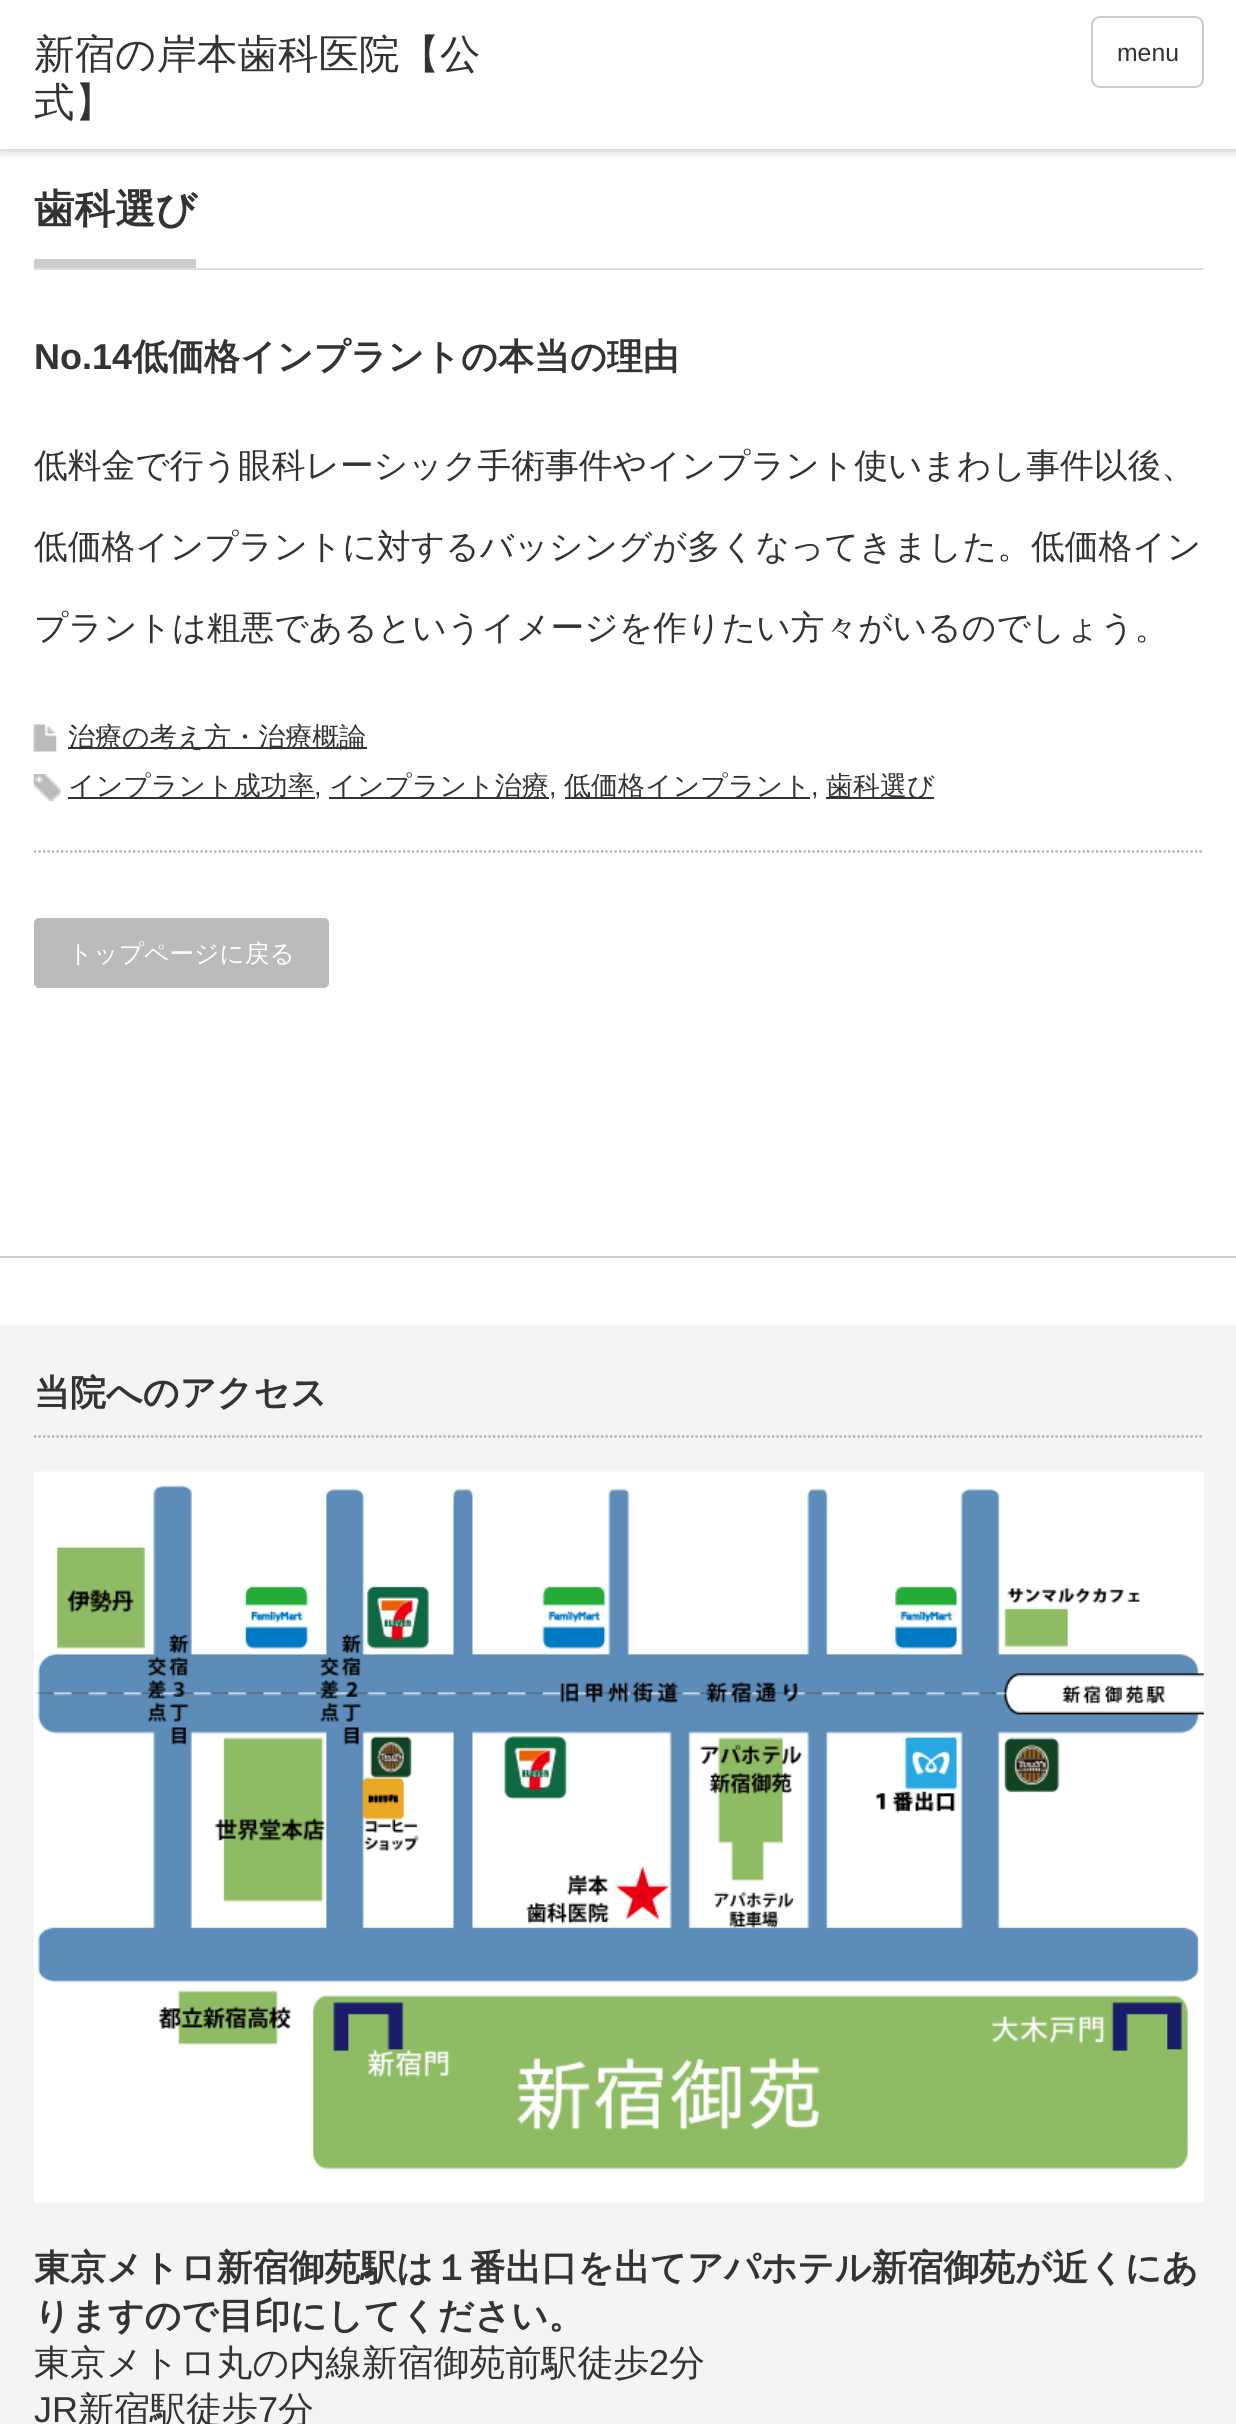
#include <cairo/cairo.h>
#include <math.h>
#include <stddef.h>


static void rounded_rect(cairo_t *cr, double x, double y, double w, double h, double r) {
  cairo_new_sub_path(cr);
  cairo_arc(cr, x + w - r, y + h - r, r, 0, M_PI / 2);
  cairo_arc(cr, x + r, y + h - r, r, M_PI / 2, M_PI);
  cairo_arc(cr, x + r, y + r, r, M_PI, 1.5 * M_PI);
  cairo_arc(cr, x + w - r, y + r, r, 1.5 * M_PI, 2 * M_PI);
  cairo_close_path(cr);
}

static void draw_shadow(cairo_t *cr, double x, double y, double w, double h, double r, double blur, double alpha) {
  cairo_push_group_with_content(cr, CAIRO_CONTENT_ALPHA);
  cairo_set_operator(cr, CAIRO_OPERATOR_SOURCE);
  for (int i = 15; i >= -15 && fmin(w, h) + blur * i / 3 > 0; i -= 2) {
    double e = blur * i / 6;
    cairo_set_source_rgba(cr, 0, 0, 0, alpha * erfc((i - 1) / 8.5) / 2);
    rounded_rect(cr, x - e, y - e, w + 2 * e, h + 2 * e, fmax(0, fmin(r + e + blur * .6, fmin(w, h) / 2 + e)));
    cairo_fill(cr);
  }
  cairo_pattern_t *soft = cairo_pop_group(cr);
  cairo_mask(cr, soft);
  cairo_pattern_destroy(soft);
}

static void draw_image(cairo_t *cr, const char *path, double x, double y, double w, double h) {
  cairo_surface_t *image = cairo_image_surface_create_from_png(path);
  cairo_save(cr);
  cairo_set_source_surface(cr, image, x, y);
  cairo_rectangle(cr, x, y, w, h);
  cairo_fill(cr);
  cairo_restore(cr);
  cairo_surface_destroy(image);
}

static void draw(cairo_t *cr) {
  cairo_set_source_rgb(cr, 1, 1, 1);
  cairo_paint(cr);
  cairo_set_source_rgb(cr, 0, 0, 0);
  draw_shadow(cr, 0, 0, 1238, 149, 0, 5.5, 0.3);
  cairo_set_source_rgb(cr, 1, 1, 1);
  cairo_rectangle(cr, 0, 0, 1236, 149);
  cairo_fill(cr);
  rounded_rect(cr, 1092, 17, 111, 70, 8);
  cairo_set_source_rgb(cr, 204 / 255.0, 204 / 255.0, 204 / 255.0);
  cairo_stroke(cr);
  cairo_set_source_rgb(cr, 221 / 255.0, 221 / 255.0, 221 / 255.0);
  cairo_rectangle(cr, 34, 268, 1170, 2);
  cairo_fill(cr);
  cairo_set_source_rgb(cr, 204 / 255.0, 204 / 255.0, 204 / 255.0);
  cairo_rectangle(cr, 34, 259, 162, 9);
  cairo_fill(cr);
  cairo_new_path(cr);
  cairo_move_to(cr, 34, 851.5);
  cairo_line_to(cr, 1204, 851.5);
  cairo_set_source_rgb(cr, 170 / 255.0, 170 / 255.0, 170 / 255.0);
  cairo_set_line_width(cr, 2.2);
  cairo_set_dash(cr, (double[]){2.25, 2.25}, 2, 0);
  cairo_stroke(cr);
  draw_image(cr, "images/1.png", 33, 724, 24, 28);
  cairo_set_source_rgb(cr, 51 / 255.0, 51 / 255.0, 51 / 255.0);
  cairo_rectangle(cr, 68, 747, 299, 2);
  cairo_fill(cr);
  draw_image(cr, "images/2.png", 33, 774, 28, 27);
  cairo_rectangle(cr, 68, 797, 247, 2);
  cairo_fill(cr);
  cairo_rectangle(cr, 329, 797, 220, 2);
  cairo_fill(cr);
  cairo_rectangle(cr, 565, 797, 245, 2);
  cairo_fill(cr);
  cairo_rectangle(cr, 826, 797, 108, 2);
  cairo_fill(cr);
  cairo_set_source_rgb(cr, 187 / 255.0, 187 / 255.0, 187 / 255.0);
  rounded_rect(cr, 34, 918, 295, 70, 5);
  cairo_fill(cr);
  cairo_set_source_rgb(cr, 204 / 255.0, 204 / 255.0, 204 / 255.0);
  cairo_rectangle(cr, 0, 1256, 1236, 2);
  cairo_fill(cr);
  cairo_set_source_rgb(cr, 244 / 255.0, 244 / 255.0, 244 / 255.0);
  cairo_rectangle(cr, 0, 1325, 1236, 1099);
  cairo_fill(cr);
  cairo_new_path(cr);
  cairo_move_to(cr, 34, 1436.5);
  cairo_line_to(cr, 1204, 1436.5);
  cairo_set_source_rgb(cr, 170 / 255.0, 170 / 255.0, 170 / 255.0);
  cairo_stroke(cr);
  draw_image(cr, "images/3.png", 34, 1471, 1170, 732);
  cairo_select_font_face(cr, "WenQuanYi Zen Hei Medium", CAIRO_FONT_SLANT_NORMAL, CAIRO_FONT_WEIGHT_NORMAL);
  cairo_set_font_size(cr, 40.5);
  cairo_set_source_rgb(cr, 51 / 255.0, 51 / 255.0, 51 / 255.0);
  cairo_move_to(cr, 34, 68);
  cairo_show_text(cr, "新宿の岸本歯科医院【公");
  cairo_move_to(cr, 34, 116);
  cairo_show_text(cr, "式】");
  cairo_select_font_face(cr, "Liberation Sans", CAIRO_FONT_SLANT_NORMAL, CAIRO_FONT_WEIGHT_NORMAL);
  cairo_set_font_size(cr, 24.75);
  cairo_move_to(cr, 1117, 61);
  cairo_show_text(cr, "menu");
  cairo_select_font_face(cr, "WenQuanYi Zen Hei", CAIRO_FONT_SLANT_NORMAL, CAIRO_FONT_WEIGHT_BOLD);
  cairo_set_font_size(cr, 40.5);
  cairo_move_to(cr, 34, 223);
  cairo_show_text(cr, "歯科選び");
  cairo_select_font_face(cr, "Liberation Sans", CAIRO_FONT_SLANT_NORMAL, CAIRO_FONT_WEIGHT_BOLD);
  cairo_set_font_size(cr, 36);
  cairo_move_to(cr, 34, 369);
  cairo_show_text(cr, "No.14");
  cairo_select_font_face(cr, "WenQuanYi Zen Hei", CAIRO_FONT_SLANT_NORMAL, CAIRO_FONT_WEIGHT_BOLD);
  cairo_move_to(cr, 132, 369);
  cairo_show_text(cr, "低価格インプラントの本当の理由");
  cairo_select_font_face(cr, "WenQuanYi Zen Hei Medium", CAIRO_FONT_SLANT_NORMAL, CAIRO_FONT_WEIGHT_NORMAL);
  cairo_set_font_size(cr, 33.75);
  cairo_move_to(cr, 34, 477);
  cairo_show_text(cr, "低料金で行う眼科レーシック手術事件やインプラント使いまわし事件以後、");
  cairo_move_to(cr, 34, 558);
  cairo_show_text(cr, "低価格インプラントに対するバッシングが多くなってきました。低価格イン");
  cairo_move_to(cr, 34, 639);
  cairo_show_text(cr, "プラントは粗悪であるというイメージを作りたい方々がいるのでしょう。");
  cairo_set_font_size(cr, 27);
  cairo_move_to(cr, 68, 746);
  cairo_show_text(cr, "治療の考え方・治療概論");
  cairo_move_to(cr, 68, 795);
  cairo_show_text(cr, "インプラント成功率");
  cairo_select_font_face(cr, "Liberation Sans", CAIRO_FONT_SLANT_NORMAL, CAIRO_FONT_WEIGHT_NORMAL);
  cairo_move_to(cr, 314, 795);
  cairo_show_text(cr, ",");
  cairo_select_font_face(cr, "WenQuanYi Zen Hei Medium", CAIRO_FONT_SLANT_NORMAL, CAIRO_FONT_WEIGHT_NORMAL);
  cairo_move_to(cr, 329, 795);
  cairo_show_text(cr, "インプラント治療");
  cairo_select_font_face(cr, "Liberation Sans", CAIRO_FONT_SLANT_NORMAL, CAIRO_FONT_WEIGHT_NORMAL);
  cairo_move_to(cr, 549, 795);
  cairo_show_text(cr, ",");
  cairo_select_font_face(cr, "WenQuanYi Zen Hei Medium", CAIRO_FONT_SLANT_NORMAL, CAIRO_FONT_WEIGHT_NORMAL);
  cairo_move_to(cr, 564, 795);
  cairo_show_text(cr, "低価格インプラント");
  cairo_select_font_face(cr, "Liberation Sans", CAIRO_FONT_SLANT_NORMAL, CAIRO_FONT_WEIGHT_NORMAL);
  cairo_move_to(cr, 811, 795);
  cairo_show_text(cr, ",");
  cairo_select_font_face(cr, "WenQuanYi Zen Hei Medium", CAIRO_FONT_SLANT_NORMAL, CAIRO_FONT_WEIGHT_NORMAL);
  cairo_move_to(cr, 826, 795);
  cairo_show_text(cr, "歯科選び");
  cairo_set_font_size(cr, 24.75);
  cairo_set_source_rgb(cr, 1, 1, 1);
  cairo_move_to(cr, 68, 962);
  cairo_show_text(cr, "トップページに戻る");
  cairo_select_font_face(cr, "WenQuanYi Zen Hei", CAIRO_FONT_SLANT_NORMAL, CAIRO_FONT_WEIGHT_BOLD);
  cairo_set_font_size(cr, 36);
  cairo_set_source_rgb(cr, 51 / 255.0, 51 / 255.0, 51 / 255.0);
  cairo_move_to(cr, 34, 1405);
  cairo_show_text(cr, "当院へのアクセス");
  cairo_move_to(cr, 34, 2280);
  cairo_show_text(cr, "東京メトロ新宿御苑駅は１番出口を出てアパホテル新宿御苑が近くにあ");
  cairo_move_to(cr, 34, 2328);
  cairo_show_text(cr, "りますので目印にしてください。");
  cairo_select_font_face(cr, "WenQuanYi Zen Hei Medium", CAIRO_FONT_SLANT_NORMAL, CAIRO_FONT_WEIGHT_NORMAL);
  cairo_move_to(cr, 34, 2375);
  cairo_show_text(cr, "東京メトロ丸の内線新宿御苑前駅徒歩");
  cairo_select_font_face(cr, "Liberation Sans", CAIRO_FONT_SLANT_NORMAL, CAIRO_FONT_WEIGHT_NORMAL);
  cairo_move_to(cr, 649, 2375);
  cairo_show_text(cr, "2");
  cairo_select_font_face(cr, "WenQuanYi Zen Hei Medium", CAIRO_FONT_SLANT_NORMAL, CAIRO_FONT_WEIGHT_NORMAL);
  cairo_move_to(cr, 669, 2375);
  cairo_show_text(cr, "分");
  cairo_select_font_face(cr, "Liberation Sans", CAIRO_FONT_SLANT_NORMAL, CAIRO_FONT_WEIGHT_NORMAL);
  cairo_move_to(cr, 34, 2422);
  cairo_show_text(cr, "JR");
  cairo_select_font_face(cr, "WenQuanYi Zen Hei Medium", CAIRO_FONT_SLANT_NORMAL, CAIRO_FONT_WEIGHT_NORMAL);
  cairo_move_to(cr, 78, 2422);
  cairo_show_text(cr, "新宿駅徒歩");
  cairo_select_font_face(cr, "Liberation Sans", CAIRO_FONT_SLANT_NORMAL, CAIRO_FONT_WEIGHT_NORMAL);
  cairo_move_to(cr, 258, 2422);
  cairo_show_text(cr, "7");
  cairo_select_font_face(cr, "WenQuanYi Zen Hei Medium", CAIRO_FONT_SLANT_NORMAL, CAIRO_FONT_WEIGHT_NORMAL);
  cairo_move_to(cr, 278, 2422);
  cairo_show_text(cr, "分");
}

int main(void) {
  cairo_surface_t *surface = cairo_image_surface_create(CAIRO_FORMAT_RGB24, 1236, 2424);
  cairo_t *cr = cairo_create(surface);
  cairo_font_options_t *options = cairo_font_options_create();
  cairo_font_options_set_hint_metrics(options, CAIRO_HINT_METRICS_OFF);
  cairo_font_options_set_hint_style(options, CAIRO_HINT_STYLE_NONE);
  cairo_set_font_options(cr, options);
  cairo_set_miter_limit(cr, 4);
  draw(cr);
  cairo_surface_write_to_png(surface, "out.png");
  cairo_font_options_destroy(options);
  cairo_destroy(cr);
  cairo_surface_destroy(surface);
  return 0;
}
